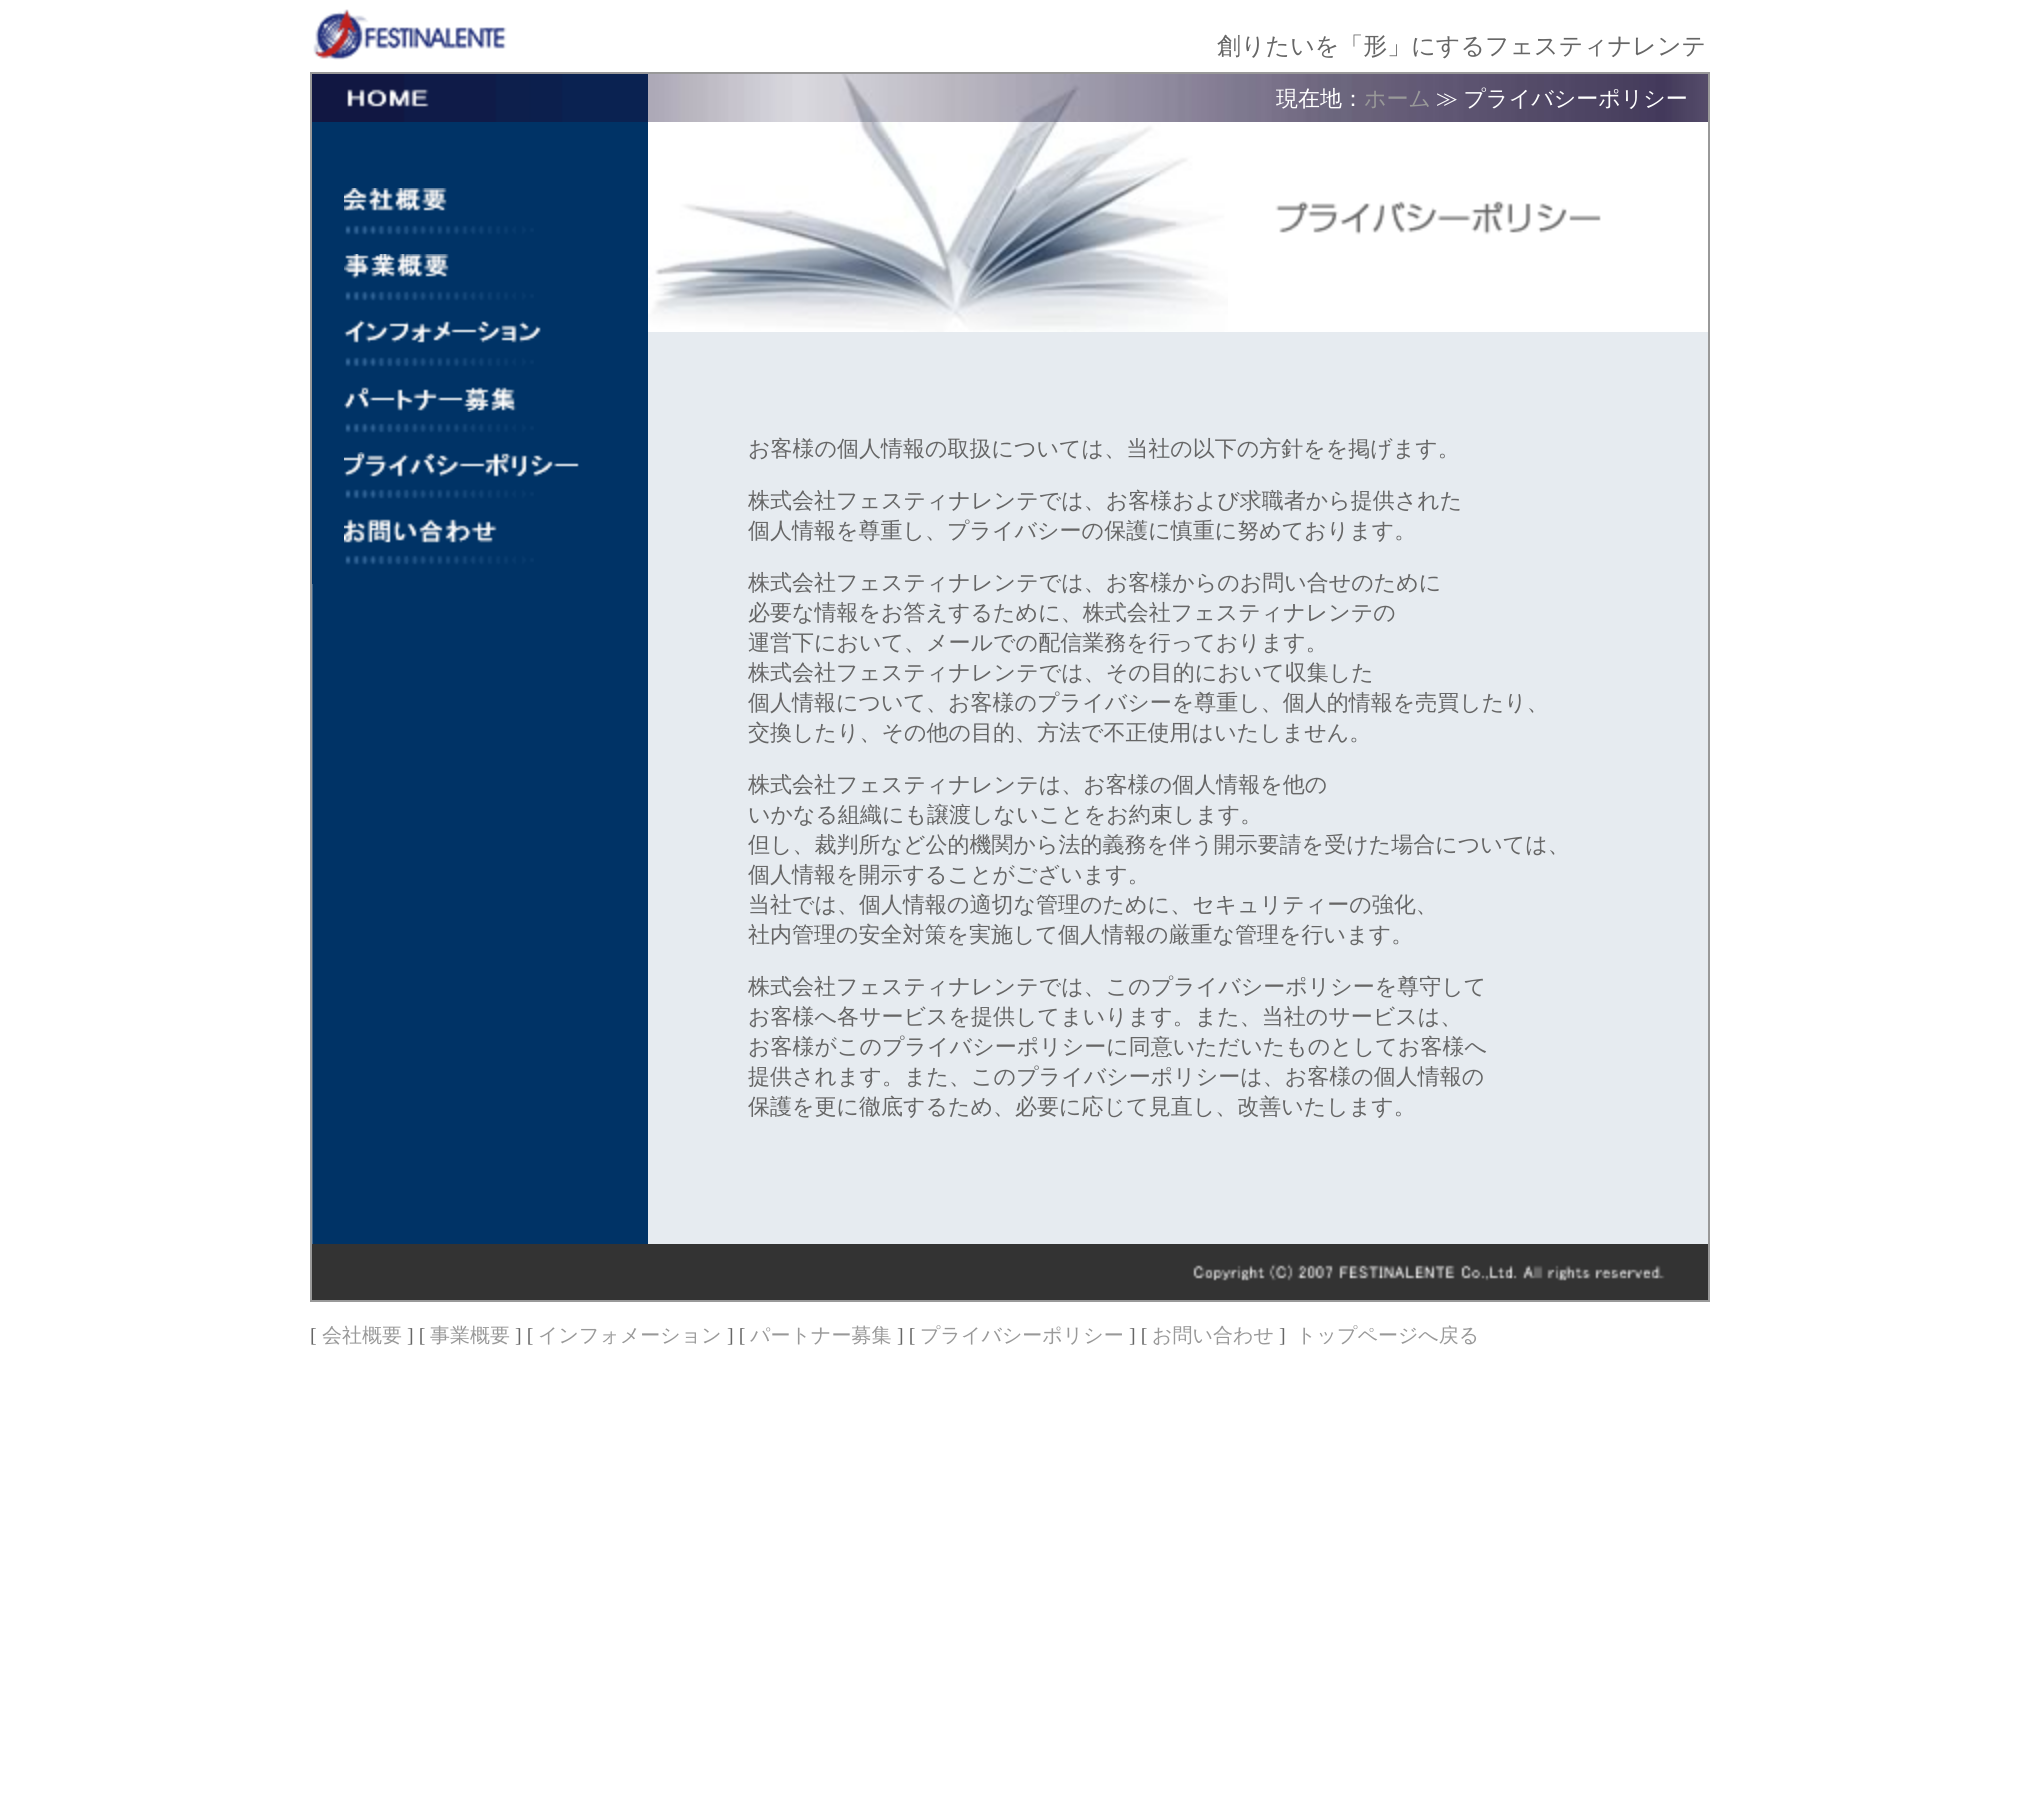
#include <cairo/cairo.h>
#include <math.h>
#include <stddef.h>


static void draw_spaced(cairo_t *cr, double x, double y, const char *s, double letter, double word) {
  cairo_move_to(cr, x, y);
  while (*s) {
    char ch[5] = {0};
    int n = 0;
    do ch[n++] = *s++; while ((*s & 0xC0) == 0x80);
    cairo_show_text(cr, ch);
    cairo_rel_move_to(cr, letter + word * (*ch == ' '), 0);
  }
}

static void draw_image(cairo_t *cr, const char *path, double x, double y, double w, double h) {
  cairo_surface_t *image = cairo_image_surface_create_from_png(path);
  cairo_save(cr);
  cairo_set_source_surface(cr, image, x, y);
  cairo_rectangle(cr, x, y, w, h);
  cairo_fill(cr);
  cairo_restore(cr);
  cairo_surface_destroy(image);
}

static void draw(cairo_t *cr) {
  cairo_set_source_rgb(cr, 1, 1, 1);
  cairo_paint(cr);
  draw_image(cr, "images/1.png", 313, 9, 194, 51);
  draw_image(cr, "images/2.png", 312, 584, 336, 660);
  cairo_rectangle(cr, 311, 73, 1398, 1228);
  cairo_set_source_rgb(cr, 153 / 255.0, 153 / 255.0, 153 / 255.0);
  cairo_stroke(cr);
  cairo_set_source_rgb(cr, 0, 51 / 255.0, 102 / 255.0);
  cairo_rectangle(cr, 312, 122, 336, 462);
  cairo_fill(cr);
  draw_image(cr, "images/3.png", 312, 74, 336, 48);
  draw_image(cr, "images/4.png", 344, 188, 103, 23);
  draw_image(cr, "images/5.png", 345, 225, 189, 10);
  draw_image(cr, "images/6.png", 344, 254, 105, 25);
  draw_image(cr, "images/5.png", 345, 291, 189, 10);
  draw_image(cr, "images/7.png", 344, 320, 197, 23);
  draw_image(cr, "images/5.png", 345, 357, 189, 10);
  draw_image(cr, "images/8.png", 344, 387, 173, 25);
  draw_image(cr, "images/5.png", 345, 423, 189, 10);
  draw_image(cr, "images/9.png", 344, 452, 235, 25);
  draw_image(cr, "images/5.png", 345, 489, 189, 10);
  draw_image(cr, "images/10.png", 344, 519, 153, 24);
  draw_image(cr, "images/5.png", 345, 555, 189, 10);
  cairo_set_source_rgb(cr, 230 / 255.0, 235 / 255.0, 240 / 255.0);
  cairo_rectangle(cr, 648, 332, 1060, 912);
  cairo_fill(cr);
  draw_image(cr, "images/11.png", 648, 74, 1060, 48);
  draw_image(cr, "images/12.png", 648, 122, 580, 210);
  draw_image(cr, "images/13.png", 1228, 122, 480, 210);
  draw_image(cr, "images/14.png", 312, 1244, 1396, 56);
  cairo_select_font_face(cr, "WenQuanYi Zen Hei Medium", CAIRO_FONT_SLANT_NORMAL, CAIRO_FONT_WEIGHT_NORMAL);
  cairo_set_font_size(cr, 24);
  cairo_set_source_rgb(cr, 102 / 255.0, 102 / 255.0, 102 / 255.0);
  cairo_move_to(cr, 1217, 54);
  cairo_show_text(cr, "創りたいを「形」にするフェスティナレンテ");
  cairo_set_font_size(cr, 22);
  cairo_set_source_rgb(cr, 1, 1, 1);
  cairo_move_to(cr, 1276, 106);
  cairo_show_text(cr, "現在地：");
  cairo_set_source_rgb(cr, 153 / 255.0, 153 / 255.0, 153 / 255.0);
  cairo_move_to(cr, 1364, 106);
  cairo_show_text(cr, "ホーム");
  cairo_set_source_rgb(cr, 1, 1, 1);
  draw_spaced(cr, 1436, 106, "≫ プライバシーポリシー", 0, -1);
  cairo_set_source_rgb(cr, 102 / 255.0, 102 / 255.0, 102 / 255.0);
  cairo_move_to(cr, 748, 456);
  cairo_show_text(cr, "お客様の個人情報の取扱については、当社の以下の方針をを掲げます。");
  cairo_move_to(cr, 748, 508);
  cairo_show_text(cr, "株式会社フェスティナレンテでは、お客様および求職者から提供された");
  cairo_move_to(cr, 748, 538);
  cairo_show_text(cr, "個人情報を尊重し、プライバシーの保護に慎重に努めております。");
  cairo_move_to(cr, 748, 590);
  cairo_show_text(cr, "株式会社フェスティナレンテでは、お客様からのお問い合せのために");
  cairo_move_to(cr, 748, 620);
  cairo_show_text(cr, "必要な情報をお答えするために、株式会社フェスティナレンテの");
  cairo_move_to(cr, 748, 650);
  cairo_show_text(cr, "運営下において、メールでの配信業務を行っております。");
  cairo_move_to(cr, 748, 680);
  cairo_show_text(cr, "株式会社フェスティナレンテでは、その目的において収集した");
  cairo_move_to(cr, 748, 710);
  cairo_show_text(cr, "個人情報について、お客様のプライバシーを尊重し、個人的情報を売買したり、");
  cairo_move_to(cr, 748, 740);
  cairo_show_text(cr, "交換したり、その他の目的、方法で不正使用はいたしません。");
  cairo_move_to(cr, 748, 792);
  cairo_show_text(cr, "株式会社フェスティナレンテは、お客様の個人情報を他の");
  cairo_move_to(cr, 748, 822);
  cairo_show_text(cr, "いかなる組織にも譲渡しないことをお約束します。");
  cairo_move_to(cr, 748, 852);
  cairo_show_text(cr, "但し、裁判所など公的機関から法的義務を伴う開示要請を受けた場合については、");
  cairo_move_to(cr, 748, 882);
  cairo_show_text(cr, "個人情報を開示することがございます。");
  cairo_move_to(cr, 748, 912);
  cairo_show_text(cr, "当社では、個人情報の適切な管理のために、セキュリティーの強化、");
  cairo_move_to(cr, 748, 942);
  cairo_show_text(cr, "社内管理の安全対策を実施して個人情報の厳重な管理を行います。");
  cairo_move_to(cr, 748, 994);
  cairo_show_text(cr, "株式会社フェスティナレンテでは、このプライバシーポリシーを尊守して");
  cairo_move_to(cr, 748, 1024);
  cairo_show_text(cr, "お客様へ各サービスを提供してまいります。また、当社のサービスは、");
  cairo_move_to(cr, 748, 1054);
  cairo_show_text(cr, "お客様がこのプライバシーポリシーに同意いただいたものとしてお客様へ");
  cairo_move_to(cr, 748, 1084);
  cairo_show_text(cr, "提供されます。また、このプライバシーポリシーは、お客様の個人情報の");
  cairo_move_to(cr, 748, 1114);
  cairo_show_text(cr, "保護を更に徹底するため、必要に応じて見直し、改善いたします。");
  cairo_select_font_face(cr, "Liberation Serif", CAIRO_FONT_SLANT_NORMAL, CAIRO_FONT_WEIGHT_NORMAL);
  cairo_set_font_size(cr, 20);
  cairo_move_to(cr, 310, 1342);
  cairo_show_text(cr, "[");
  cairo_select_font_face(cr, "WenQuanYi Zen Hei Medium", CAIRO_FONT_SLANT_NORMAL, CAIRO_FONT_WEIGHT_NORMAL);
  cairo_set_source_rgb(cr, 153 / 255.0, 153 / 255.0, 153 / 255.0);
  cairo_move_to(cr, 322, 1342);
  cairo_show_text(cr, "会社概要");
  cairo_select_font_face(cr, "Liberation Serif", CAIRO_FONT_SLANT_NORMAL, CAIRO_FONT_WEIGHT_NORMAL);
  cairo_set_source_rgb(cr, 102 / 255.0, 102 / 255.0, 102 / 255.0);
  cairo_move_to(cr, 407, 1342);
  cairo_show_text(cr, "] [");
  cairo_select_font_face(cr, "WenQuanYi Zen Hei Medium", CAIRO_FONT_SLANT_NORMAL, CAIRO_FONT_WEIGHT_NORMAL);
  cairo_set_source_rgb(cr, 153 / 255.0, 153 / 255.0, 153 / 255.0);
  cairo_move_to(cr, 430, 1342);
  cairo_show_text(cr, "事業概要");
  cairo_select_font_face(cr, "Liberation Serif", CAIRO_FONT_SLANT_NORMAL, CAIRO_FONT_WEIGHT_NORMAL);
  cairo_set_source_rgb(cr, 102 / 255.0, 102 / 255.0, 102 / 255.0);
  cairo_move_to(cr, 515, 1342);
  cairo_show_text(cr, "] [");
  cairo_select_font_face(cr, "WenQuanYi Zen Hei Medium", CAIRO_FONT_SLANT_NORMAL, CAIRO_FONT_WEIGHT_NORMAL);
  cairo_set_source_rgb(cr, 153 / 255.0, 153 / 255.0, 153 / 255.0);
  cairo_move_to(cr, 538, 1342);
  cairo_show_text(cr, "インフォメーション");
  cairo_select_font_face(cr, "Liberation Serif", CAIRO_FONT_SLANT_NORMAL, CAIRO_FONT_WEIGHT_NORMAL);
  cairo_set_source_rgb(cr, 102 / 255.0, 102 / 255.0, 102 / 255.0);
  cairo_move_to(cr, 727, 1342);
  cairo_show_text(cr, "] [");
  cairo_select_font_face(cr, "WenQuanYi Zen Hei Medium", CAIRO_FONT_SLANT_NORMAL, CAIRO_FONT_WEIGHT_NORMAL);
  cairo_set_source_rgb(cr, 153 / 255.0, 153 / 255.0, 153 / 255.0);
  cairo_move_to(cr, 750, 1342);
  cairo_show_text(cr, "パートナー募集");
  cairo_select_font_face(cr, "Liberation Serif", CAIRO_FONT_SLANT_NORMAL, CAIRO_FONT_WEIGHT_NORMAL);
  cairo_set_source_rgb(cr, 102 / 255.0, 102 / 255.0, 102 / 255.0);
  cairo_move_to(cr, 897, 1342);
  cairo_show_text(cr, "] [");
  cairo_select_font_face(cr, "WenQuanYi Zen Hei Medium", CAIRO_FONT_SLANT_NORMAL, CAIRO_FONT_WEIGHT_NORMAL);
  cairo_set_source_rgb(cr, 153 / 255.0, 153 / 255.0, 153 / 255.0);
  cairo_move_to(cr, 920, 1342);
  cairo_show_text(cr, "プライバシーポリシー");
  cairo_select_font_face(cr, "Liberation Serif", CAIRO_FONT_SLANT_NORMAL, CAIRO_FONT_WEIGHT_NORMAL);
  cairo_set_source_rgb(cr, 102 / 255.0, 102 / 255.0, 102 / 255.0);
  cairo_move_to(cr, 1129, 1342);
  cairo_show_text(cr, "] [");
  cairo_select_font_face(cr, "WenQuanYi Zen Hei Medium", CAIRO_FONT_SLANT_NORMAL, CAIRO_FONT_WEIGHT_NORMAL);
  cairo_set_source_rgb(cr, 153 / 255.0, 153 / 255.0, 153 / 255.0);
  cairo_move_to(cr, 1152, 1342);
  cairo_show_text(cr, "お問い合わせ");
  cairo_select_font_face(cr, "Liberation Serif", CAIRO_FONT_SLANT_NORMAL, CAIRO_FONT_WEIGHT_NORMAL);
  cairo_set_source_rgb(cr, 102 / 255.0, 102 / 255.0, 102 / 255.0);
  cairo_move_to(cr, 1279, 1342);
  cairo_show_text(cr, "]");
  cairo_select_font_face(cr, "WenQuanYi Zen Hei Medium", CAIRO_FONT_SLANT_NORMAL, CAIRO_FONT_WEIGHT_NORMAL);
  cairo_set_source_rgb(cr, 153 / 255.0, 153 / 255.0, 153 / 255.0);
  cairo_move_to(cr, 1296, 1342);
  cairo_show_text(cr, "トップページへ戻る");
}

int main(void) {
  cairo_surface_t *surface = cairo_image_surface_create(CAIRO_FORMAT_RGB24, 2019, 1802);
  cairo_t *cr = cairo_create(surface);
  cairo_font_options_t *options = cairo_font_options_create();
  cairo_font_options_set_hint_metrics(options, CAIRO_HINT_METRICS_OFF);
  cairo_font_options_set_hint_style(options, CAIRO_HINT_STYLE_NONE);
  cairo_set_font_options(cr, options);
  cairo_set_miter_limit(cr, 4);
  draw(cr);
  cairo_surface_write_to_png(surface, "out.png");
  cairo_font_options_destroy(options);
  cairo_destroy(cr);
  cairo_surface_destroy(surface);
  return 0;
}
